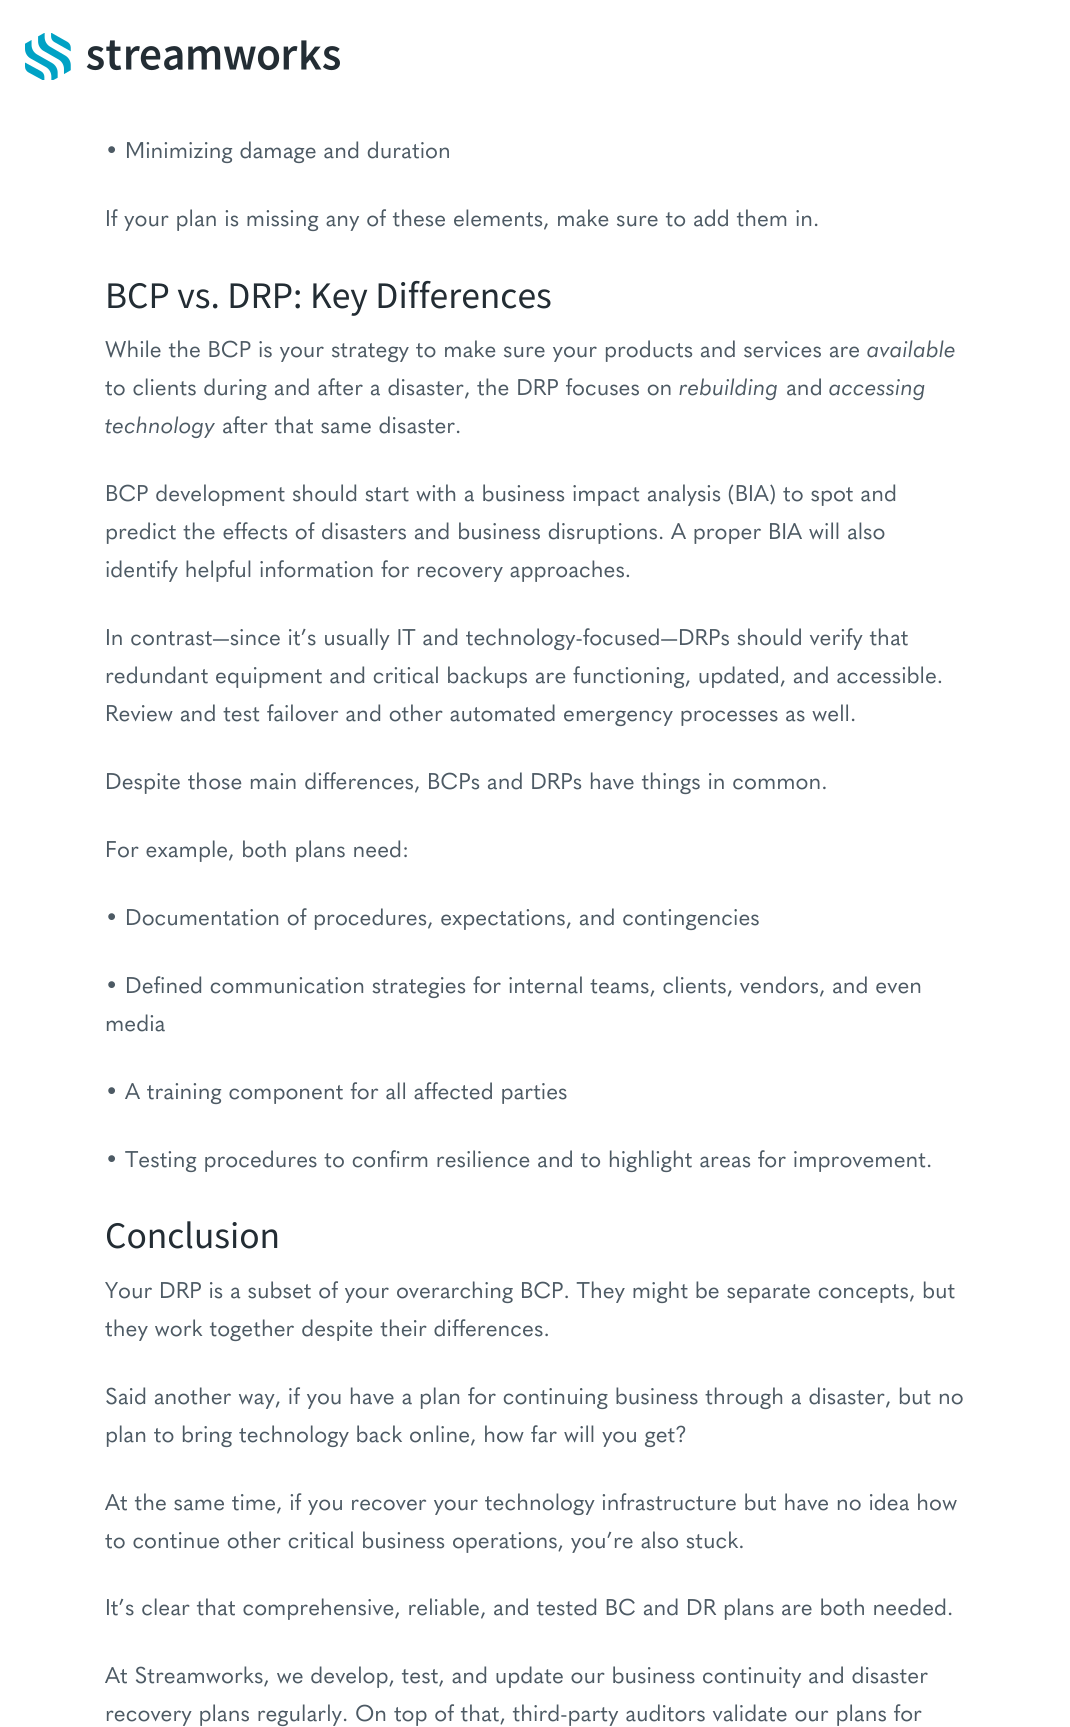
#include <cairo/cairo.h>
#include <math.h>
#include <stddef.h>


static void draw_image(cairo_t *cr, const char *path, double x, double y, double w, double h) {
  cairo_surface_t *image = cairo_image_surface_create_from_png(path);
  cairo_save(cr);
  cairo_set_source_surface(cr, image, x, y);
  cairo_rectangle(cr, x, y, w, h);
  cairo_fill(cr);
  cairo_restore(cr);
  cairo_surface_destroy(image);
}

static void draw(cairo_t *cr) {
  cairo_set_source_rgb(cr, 1, 1, 1);
  cairo_paint(cr);
  draw_image(cr, "images/1.png", 25, 33, 315, 47);
  cairo_select_font_face(cr, "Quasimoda", CAIRO_FONT_SLANT_NORMAL, CAIRO_FONT_WEIGHT_NORMAL);
  cairo_set_font_size(cr, 22.5);
  cairo_set_source_rgb(cr, 77 / 255.0, 90 / 255.0, 100 / 255.0);
  cairo_move_to(cr, 105, 158);
  cairo_show_text(cr, "• Minimizing damage and duration");
  cairo_move_to(cr, 105, 226);
  cairo_show_text(cr, "If your plan is missing any of these elements, make sure to add them in.");
  cairo_select_font_face(cr, "Source Sans Pro", CAIRO_FONT_SLANT_NORMAL, CAIRO_FONT_WEIGHT_NORMAL);
  cairo_set_font_size(cr, 37.5);
  cairo_set_source_rgb(cr, 35 / 255.0, 45 / 255.0, 52 / 255.0);
  cairo_move_to(cr, 105, 308);
  cairo_show_text(cr, "BCP vs. DRP: Key Differences");
  cairo_select_font_face(cr, "Quasimoda", CAIRO_FONT_SLANT_NORMAL, CAIRO_FONT_WEIGHT_NORMAL);
  cairo_set_font_size(cr, 22.5);
  cairo_set_source_rgb(cr, 77 / 255.0, 90 / 255.0, 100 / 255.0);
  cairo_move_to(cr, 105, 357);
  cairo_show_text(cr, "While the BCP is your strategy to make sure your products and services are");
  cairo_select_font_face(cr, "Quasimoda", CAIRO_FONT_SLANT_ITALIC, CAIRO_FONT_WEIGHT_NORMAL);
  cairo_move_to(cr, 867, 357);
  cairo_show_text(cr, "available");
  cairo_select_font_face(cr, "Quasimoda", CAIRO_FONT_SLANT_NORMAL, CAIRO_FONT_WEIGHT_NORMAL);
  cairo_move_to(cr, 105, 395);
  cairo_show_text(cr, "to clients during and after a disaster, the DRP focuses on");
  cairo_select_font_face(cr, "Quasimoda", CAIRO_FONT_SLANT_ITALIC, CAIRO_FONT_WEIGHT_NORMAL);
  cairo_move_to(cr, 679, 395);
  cairo_show_text(cr, "rebuilding");
  cairo_select_font_face(cr, "Quasimoda", CAIRO_FONT_SLANT_NORMAL, CAIRO_FONT_WEIGHT_NORMAL);
  cairo_move_to(cr, 786, 395);
  cairo_show_text(cr, "and");
  cairo_select_font_face(cr, "Quasimoda", CAIRO_FONT_SLANT_ITALIC, CAIRO_FONT_WEIGHT_NORMAL);
  cairo_move_to(cr, 829, 395);
  cairo_show_text(cr, "accessing");
  cairo_move_to(cr, 105, 433);
  cairo_show_text(cr, "technology");
  cairo_select_font_face(cr, "Quasimoda", CAIRO_FONT_SLANT_NORMAL, CAIRO_FONT_WEIGHT_NORMAL);
  cairo_move_to(cr, 222, 433);
  cairo_show_text(cr, "after that same disaster.");
  cairo_move_to(cr, 105, 501);
  cairo_show_text(cr, "BCP development should start with a business impact analysis (BIA) to spot and");
  cairo_move_to(cr, 105, 539);
  cairo_show_text(cr, "predict the effects of disasters and business disruptions. A proper BIA will also");
  cairo_move_to(cr, 105, 577);
  cairo_show_text(cr, "identify helpful information for recovery approaches.");
  cairo_move_to(cr, 105, 645);
  cairo_show_text(cr, "In contrast—since it’s usually IT and technology-focused—DRPs should verify that");
  cairo_move_to(cr, 105, 683);
  cairo_show_text(cr, "redundant equipment and critical backups are functioning, updated, and accessible.");
  cairo_move_to(cr, 105, 721);
  cairo_show_text(cr, "Review and test failover and other automated emergency processes as well.");
  cairo_move_to(cr, 105, 789);
  cairo_show_text(cr, "Despite those main differences, BCPs and DRPs have things in common.");
  cairo_move_to(cr, 105, 857);
  cairo_show_text(cr, "For example, both plans need:");
  cairo_move_to(cr, 105, 925);
  cairo_show_text(cr, "• Documentation of procedures, expectations, and contingencies");
  cairo_move_to(cr, 105, 993);
  cairo_show_text(cr, "• Defined communication strategies for internal teams, clients, vendors, and even");
  cairo_move_to(cr, 105, 1031);
  cairo_show_text(cr, "media");
  cairo_move_to(cr, 105, 1099);
  cairo_show_text(cr, "• A training component for all affected parties");
  cairo_move_to(cr, 105, 1167);
  cairo_show_text(cr, "• Testing procedures to confirm resilience and to highlight areas for improvement.");
  cairo_select_font_face(cr, "Source Sans Pro", CAIRO_FONT_SLANT_NORMAL, CAIRO_FONT_WEIGHT_NORMAL);
  cairo_set_font_size(cr, 37.5);
  cairo_set_source_rgb(cr, 35 / 255.0, 45 / 255.0, 52 / 255.0);
  cairo_move_to(cr, 105, 1248);
  cairo_show_text(cr, "Conclusion");
  cairo_select_font_face(cr, "Quasimoda", CAIRO_FONT_SLANT_NORMAL, CAIRO_FONT_WEIGHT_NORMAL);
  cairo_set_font_size(cr, 22.5);
  cairo_set_source_rgb(cr, 77 / 255.0, 90 / 255.0, 100 / 255.0);
  cairo_move_to(cr, 105, 1298);
  cairo_show_text(cr, "Your DRP is a subset of your overarching BCP. They might be separate concepts, but");
  cairo_move_to(cr, 105, 1336);
  cairo_show_text(cr, "they work together despite their differences.");
  cairo_move_to(cr, 105, 1404);
  cairo_show_text(cr, "Said another way, if you have a plan for continuing business through a disaster, but no");
  cairo_move_to(cr, 105, 1442);
  cairo_show_text(cr, "plan to bring technology back online, how far will you get?");
  cairo_move_to(cr, 105, 1510);
  cairo_show_text(cr, "At the same time, if you recover your technology infrastructure but have no idea how");
  cairo_move_to(cr, 105, 1548);
  cairo_show_text(cr, "to continue other critical business operations, you’re also stuck.");
  cairo_move_to(cr, 105, 1615);
  cairo_show_text(cr, "It’s clear that comprehensive, reliable, and tested BC and DR plans are both needed.");
  cairo_move_to(cr, 105, 1683);
  cairo_show_text(cr, "At Streamworks, we develop, test, and update our business continuity and disaster");
  cairo_move_to(cr, 105, 1721);
  cairo_show_text(cr, "recovery plans regularly. On top of that, third-party auditors validate our plans for");
}

int main(void) {
  cairo_surface_t *surface = cairo_image_surface_create(CAIRO_FORMAT_RGB24, 1070, 1727);
  cairo_t *cr = cairo_create(surface);
  cairo_font_options_t *options = cairo_font_options_create();
  cairo_font_options_set_hint_metrics(options, CAIRO_HINT_METRICS_OFF);
  cairo_font_options_set_hint_style(options, CAIRO_HINT_STYLE_NONE);
  cairo_set_font_options(cr, options);
  cairo_set_miter_limit(cr, 4);
  draw(cr);
  cairo_surface_write_to_png(surface, "out.png");
  cairo_font_options_destroy(options);
  cairo_destroy(cr);
  cairo_surface_destroy(surface);
  return 0;
}
